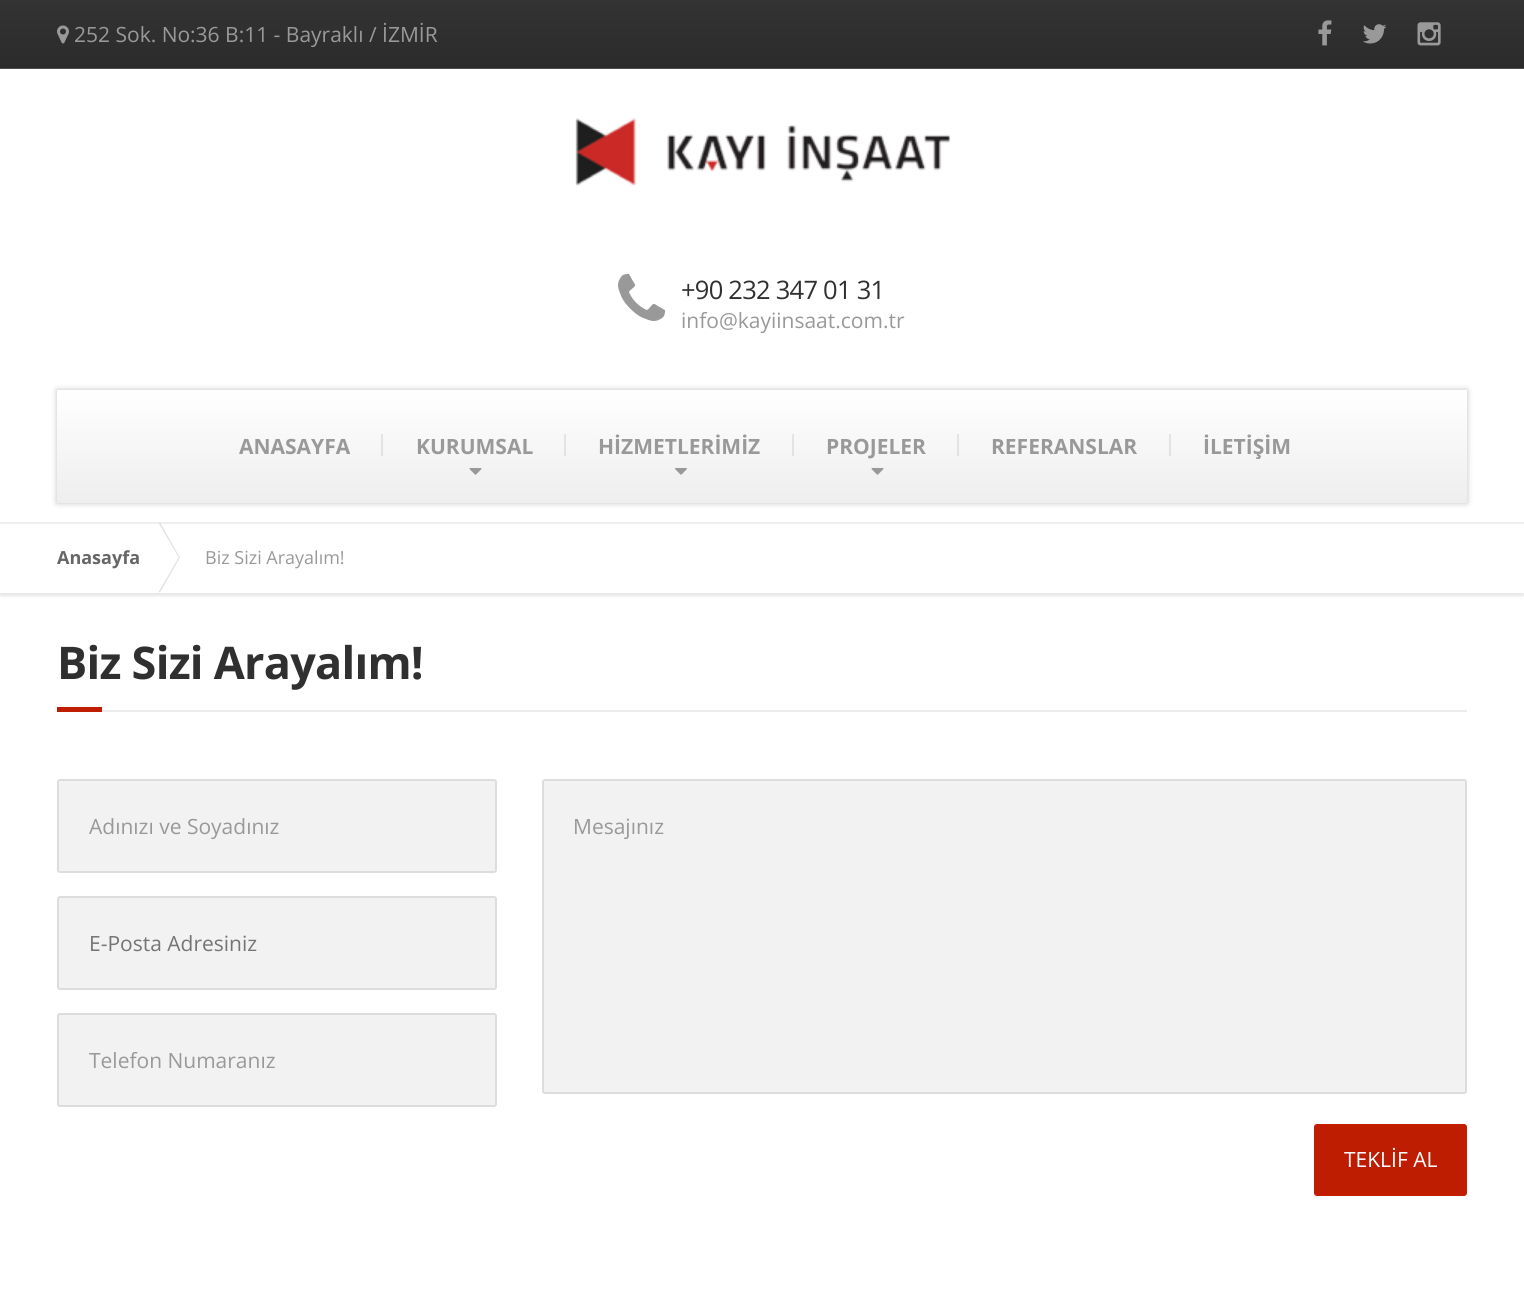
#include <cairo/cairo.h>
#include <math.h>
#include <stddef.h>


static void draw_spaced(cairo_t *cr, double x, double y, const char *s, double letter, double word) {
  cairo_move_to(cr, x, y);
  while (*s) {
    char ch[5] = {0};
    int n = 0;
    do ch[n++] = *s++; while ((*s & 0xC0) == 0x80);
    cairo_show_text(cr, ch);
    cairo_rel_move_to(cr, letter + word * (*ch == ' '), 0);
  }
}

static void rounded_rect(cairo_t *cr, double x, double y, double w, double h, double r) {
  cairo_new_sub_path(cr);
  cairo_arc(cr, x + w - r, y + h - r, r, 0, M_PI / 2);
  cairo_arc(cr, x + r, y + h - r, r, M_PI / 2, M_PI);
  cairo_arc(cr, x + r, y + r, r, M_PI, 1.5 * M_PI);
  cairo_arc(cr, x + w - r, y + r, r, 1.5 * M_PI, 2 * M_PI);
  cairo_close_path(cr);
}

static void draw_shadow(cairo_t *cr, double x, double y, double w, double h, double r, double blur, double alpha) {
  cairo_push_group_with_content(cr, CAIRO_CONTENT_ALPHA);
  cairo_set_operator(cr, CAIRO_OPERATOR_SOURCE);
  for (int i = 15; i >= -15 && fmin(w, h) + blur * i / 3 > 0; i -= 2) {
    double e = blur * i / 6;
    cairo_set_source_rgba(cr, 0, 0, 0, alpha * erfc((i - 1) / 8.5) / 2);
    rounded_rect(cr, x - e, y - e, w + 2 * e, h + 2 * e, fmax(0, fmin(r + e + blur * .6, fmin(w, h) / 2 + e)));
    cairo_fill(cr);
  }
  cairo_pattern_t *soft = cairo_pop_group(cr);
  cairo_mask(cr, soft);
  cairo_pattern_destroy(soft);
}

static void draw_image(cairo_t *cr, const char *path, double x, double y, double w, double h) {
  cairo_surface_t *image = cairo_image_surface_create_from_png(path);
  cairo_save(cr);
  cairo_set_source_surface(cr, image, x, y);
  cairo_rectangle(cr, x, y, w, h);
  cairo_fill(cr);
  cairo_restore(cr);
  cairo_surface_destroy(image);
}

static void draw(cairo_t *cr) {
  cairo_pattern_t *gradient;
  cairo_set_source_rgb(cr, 1, 1, 1);
  cairo_paint(cr);
  gradient = cairo_pattern_create_linear(762, 0, 762, 68);
  cairo_pattern_add_color_stop_rgba(gradient, 0, 51 / 255.0, 51 / 255.0, 51 / 255.0, 1);
  cairo_pattern_add_color_stop_rgba(gradient, 1, 43 / 255.0, 43 / 255.0, 43 / 255.0, 1);
  cairo_set_source(cr, gradient);
  cairo_pattern_destroy(gradient);
  cairo_rectangle(cr, 0, 0, 1524, 68);
  cairo_fill(cr);
  cairo_set_source_rgb(cr, 78 / 255.0, 78 / 255.0, 78 / 255.0);
  cairo_rectangle(cr, 0, 68, 1524, 1);
  cairo_fill(cr);
  draw_image(cr, "images/1.png", 57, 25, 12, 19);
  draw_image(cr, "images/2.png", 1318, 20, 14, 26);
  draw_image(cr, "images/3.png", 1363, 24, 24, 20);
  draw_image(cr, "images/4.png", 1417, 22, 24, 24);
  draw_image(cr, "images/5.png", 575, 118, 376, 68);
  draw_image(cr, "images/6.png", 618, 273, 48, 48);
  cairo_set_source_rgb(cr, 0, 0, 0);
  draw_shadow(cr, 57, 390, 1410, 113, 0, 3, 0.25);
  gradient = cairo_pattern_create_linear(762, 390, 762, 503);
  cairo_pattern_add_color_stop_rgba(gradient, 0, 1, 1, 1, 1);
  cairo_pattern_add_color_stop_rgba(gradient, 1, 238 / 255.0, 238 / 255.0, 238 / 255.0, 1);
  cairo_set_source(cr, gradient);
  cairo_pattern_destroy(gradient);
  cairo_rectangle(cr, 57, 390, 1410, 113);
  cairo_fill(cr);
  gradient = cairo_pattern_create_linear(762, 390, 762, 503);
  cairo_pattern_add_color_stop_rgba(gradient, 0, 235 / 255.0, 235 / 255.0, 235 / 255.0, 1);
  cairo_pattern_add_color_stop_rgba(gradient, 1, 219 / 255.0, 219 / 255.0, 219 / 255.0, 1);
  cairo_set_source(cr, gradient);
  cairo_pattern_destroy(gradient);
  cairo_rectangle(cr, 1169, 434, 2, 22);
  cairo_fill(cr);
  cairo_rectangle(cr, 957, 434, 2, 22);
  cairo_fill(cr);
  cairo_rectangle(cr, 792, 434, 2, 22);
  cairo_fill(cr);
  cairo_rectangle(cr, 564, 434, 2, 22);
  cairo_fill(cr);
  cairo_rectangle(cr, 381, 434, 2, 22);
  cairo_fill(cr);
  draw_image(cr, "images/7.png", 469, 468, 13, 7);
  draw_image(cr, "images/8.png", 675, 468, 12, 7);
  draw_image(cr, "images/7.png", 871, 468, 13, 7);
  cairo_save(cr);
  cairo_set_fill_rule(cr, CAIRO_FILL_RULE_EVEN_ODD);
  cairo_new_path(cr);
  cairo_move_to(cr, 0, 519);
  cairo_line_to(cr, 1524, 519);
  cairo_line_to(cr, 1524, 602);
  cairo_line_to(cr, 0, 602);
  cairo_close_path(cr);
  cairo_move_to(cr, 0, 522);
  cairo_line_to(cr, 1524, 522);
  cairo_line_to(cr, 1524, 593);
  cairo_line_to(cr, 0, 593);
  cairo_close_path(cr);
  cairo_clip(cr);
  cairo_set_source_rgb(cr, 230 / 255.0, 230 / 255.0, 230 / 255.0);
  draw_shadow(cr, 0, 525, 1524, 71, 0, 1.5, 1);
  cairo_restore(cr);
  cairo_set_source_rgb(cr, 239 / 255.0, 239 / 255.0, 239 / 255.0);
  cairo_rectangle(cr, 0, 522, 1524, 2);
  cairo_fill(cr);
  cairo_set_source_rgb(cr, 226 / 255.0, 226 / 255.0, 226 / 255.0);
  cairo_new_path(cr);
  cairo_move_to(cr, 158.5, 523);
  cairo_line_to(cr, 160, 522.5);
  cairo_line_to(cr, 180, 557.5);
  cairo_line_to(cr, 179, 558);
  cairo_close_path(cr);
  cairo_fill(cr);
  cairo_new_path(cr);
  cairo_move_to(cr, 179, 557);
  cairo_line_to(cr, 180, 557.5);
  cairo_line_to(cr, 160, 592.5);
  cairo_line_to(cr, 158.5, 592);
  cairo_close_path(cr);
  cairo_fill(cr);
  cairo_set_source_rgb(cr, 235 / 255.0, 235 / 255.0, 235 / 255.0);
  cairo_rectangle(cr, 102, 710, 1365, 2);
  cairo_fill(cr);
  cairo_set_source_rgb(cr, 190 / 255.0, 29 / 255.0, 2 / 255.0);
  cairo_rectangle(cr, 57, 707, 45, 5);
  cairo_fill(cr);
  cairo_set_source_rgb(cr, 242 / 255.0, 242 / 255.0, 242 / 255.0);
  rounded_rect(cr, 58, 780, 438, 92, 2);
  cairo_fill_preserve(cr);
  cairo_set_source_rgb(cr, 221 / 255.0, 221 / 255.0, 221 / 255.0);
  cairo_stroke(cr);
  cairo_set_source_rgb(cr, 242 / 255.0, 242 / 255.0, 242 / 255.0);
  rounded_rect(cr, 58, 897, 438, 92, 2);
  cairo_fill_preserve(cr);
  cairo_set_source_rgb(cr, 221 / 255.0, 221 / 255.0, 221 / 255.0);
  cairo_stroke(cr);
  cairo_set_source_rgb(cr, 242 / 255.0, 242 / 255.0, 242 / 255.0);
  rounded_rect(cr, 58, 1014, 438, 92, 2);
  cairo_fill_preserve(cr);
  cairo_set_source_rgb(cr, 221 / 255.0, 221 / 255.0, 221 / 255.0);
  cairo_stroke(cr);
  cairo_set_source_rgb(cr, 242 / 255.0, 242 / 255.0, 242 / 255.0);
  rounded_rect(cr, 543, 780, 923, 313, 2);
  cairo_fill_preserve(cr);
  cairo_set_source_rgb(cr, 221 / 255.0, 221 / 255.0, 221 / 255.0);
  cairo_stroke(cr);
  cairo_set_source_rgb(cr, 190 / 255.0, 29 / 255.0, 2 / 255.0);
  rounded_rect(cr, 1315.5, 1125.5, 150, 69, 1.5);
  cairo_fill_preserve(cr);
  cairo_set_source_rgb(cr, 195 / 255.0, 29 / 255.0, 0);
  cairo_set_line_width(cr, 3);
  cairo_stroke(cr);
  cairo_select_font_face(cr, "Open Sans", CAIRO_FONT_SLANT_NORMAL, CAIRO_FONT_WEIGHT_NORMAL);
  cairo_set_font_size(cr, 21);
  cairo_set_source_rgb(cr, 153 / 255.0, 153 / 255.0, 153 / 255.0);
  cairo_move_to(cr, 74, 42);
  cairo_show_text(cr, "252 Sok. No:36 B:11 - Bayraklı / İZMİR");
  cairo_set_font_size(cr, 25.5);
  cairo_set_source_rgb(cr, 48 / 255.0, 48 / 255.0, 48 / 255.0);
  draw_spaced(cr, 681, 299, "+90 232 347 01 31", -0.75, 0);
  cairo_set_font_size(cr, 21);
  cairo_set_source_rgb(cr, 153 / 255.0, 153 / 255.0, 153 / 255.0);
  cairo_move_to(cr, 681, 328);
  cairo_show_text(cr, "info@kayiinsaat.com.tr");
  cairo_select_font_face(cr, "Open Sans", CAIRO_FONT_SLANT_NORMAL, CAIRO_FONT_WEIGHT_BOLD);
  cairo_move_to(cr, 239, 454);
  cairo_show_text(cr, "ANASAYFA");
  cairo_move_to(cr, 416, 454);
  cairo_show_text(cr, "KURUMSAL");
  cairo_move_to(cr, 598, 454);
  cairo_show_text(cr, "HİZMETLERİMİZ");
  cairo_move_to(cr, 826, 454);
  cairo_show_text(cr, "PROJELER");
  cairo_move_to(cr, 991, 454);
  cairo_show_text(cr, "REFERANSLAR");
  cairo_move_to(cr, 1203, 454);
  cairo_show_text(cr, "İLETİŞİM");
  cairo_set_font_size(cr, 18);
  cairo_set_source_rgb(cr, 102 / 255.0, 102 / 255.0, 102 / 255.0);
  cairo_move_to(cr, 57, 564);
  cairo_show_text(cr, "Anasayfa");
  cairo_select_font_face(cr, "Open Sans", CAIRO_FONT_SLANT_NORMAL, CAIRO_FONT_WEIGHT_NORMAL);
  cairo_set_source_rgb(cr, 153 / 255.0, 153 / 255.0, 153 / 255.0);
  cairo_move_to(cr, 205, 564);
  cairo_show_text(cr, "Biz Sizi Arayalım!");
  cairo_select_font_face(cr, "Open Sans", CAIRO_FONT_SLANT_NORMAL, CAIRO_FONT_WEIGHT_BOLD);
  cairo_set_font_size(cr, 45);
  cairo_set_source_rgb(cr, 48 / 255.0, 48 / 255.0, 48 / 255.0);
  draw_spaced(cr, 57, 679, "Biz Sizi Arayalım!", -0.75, 0);
  cairo_select_font_face(cr, "Open Sans", CAIRO_FONT_SLANT_NORMAL, CAIRO_FONT_WEIGHT_NORMAL);
  cairo_set_font_size(cr, 21);
  cairo_set_source_rgb(cr, 153 / 255.0, 153 / 255.0, 153 / 255.0);
  cairo_move_to(cr, 89, 834);
  cairo_show_text(cr, "Adınızı ve Soyadınız");
  cairo_set_source_rgb(cr, 117 / 255.0, 117 / 255.0, 117 / 255.0);
  cairo_move_to(cr, 89, 951);
  cairo_show_text(cr, "E-Posta Adresiniz");
  cairo_set_source_rgb(cr, 153 / 255.0, 153 / 255.0, 153 / 255.0);
  cairo_move_to(cr, 89, 1068);
  cairo_show_text(cr, "Telefon Numaranız");
  cairo_move_to(cr, 573, 834);
  cairo_show_text(cr, "Mesajınız");
  cairo_set_source_rgb(cr, 1, 1, 1);
  cairo_move_to(cr, 1344, 1167);
  cairo_show_text(cr, "TEKLİF AL");
}

int main(void) {
  cairo_surface_t *surface = cairo_image_surface_create(CAIRO_FORMAT_RGB24, 1524, 1301);
  cairo_t *cr = cairo_create(surface);
  cairo_font_options_t *options = cairo_font_options_create();
  cairo_font_options_set_hint_metrics(options, CAIRO_HINT_METRICS_OFF);
  cairo_font_options_set_hint_style(options, CAIRO_HINT_STYLE_NONE);
  cairo_set_font_options(cr, options);
  cairo_set_miter_limit(cr, 4);
  draw(cr);
  cairo_surface_write_to_png(surface, "out.png");
  cairo_font_options_destroy(options);
  cairo_destroy(cr);
  cairo_surface_destroy(surface);
  return 0;
}
